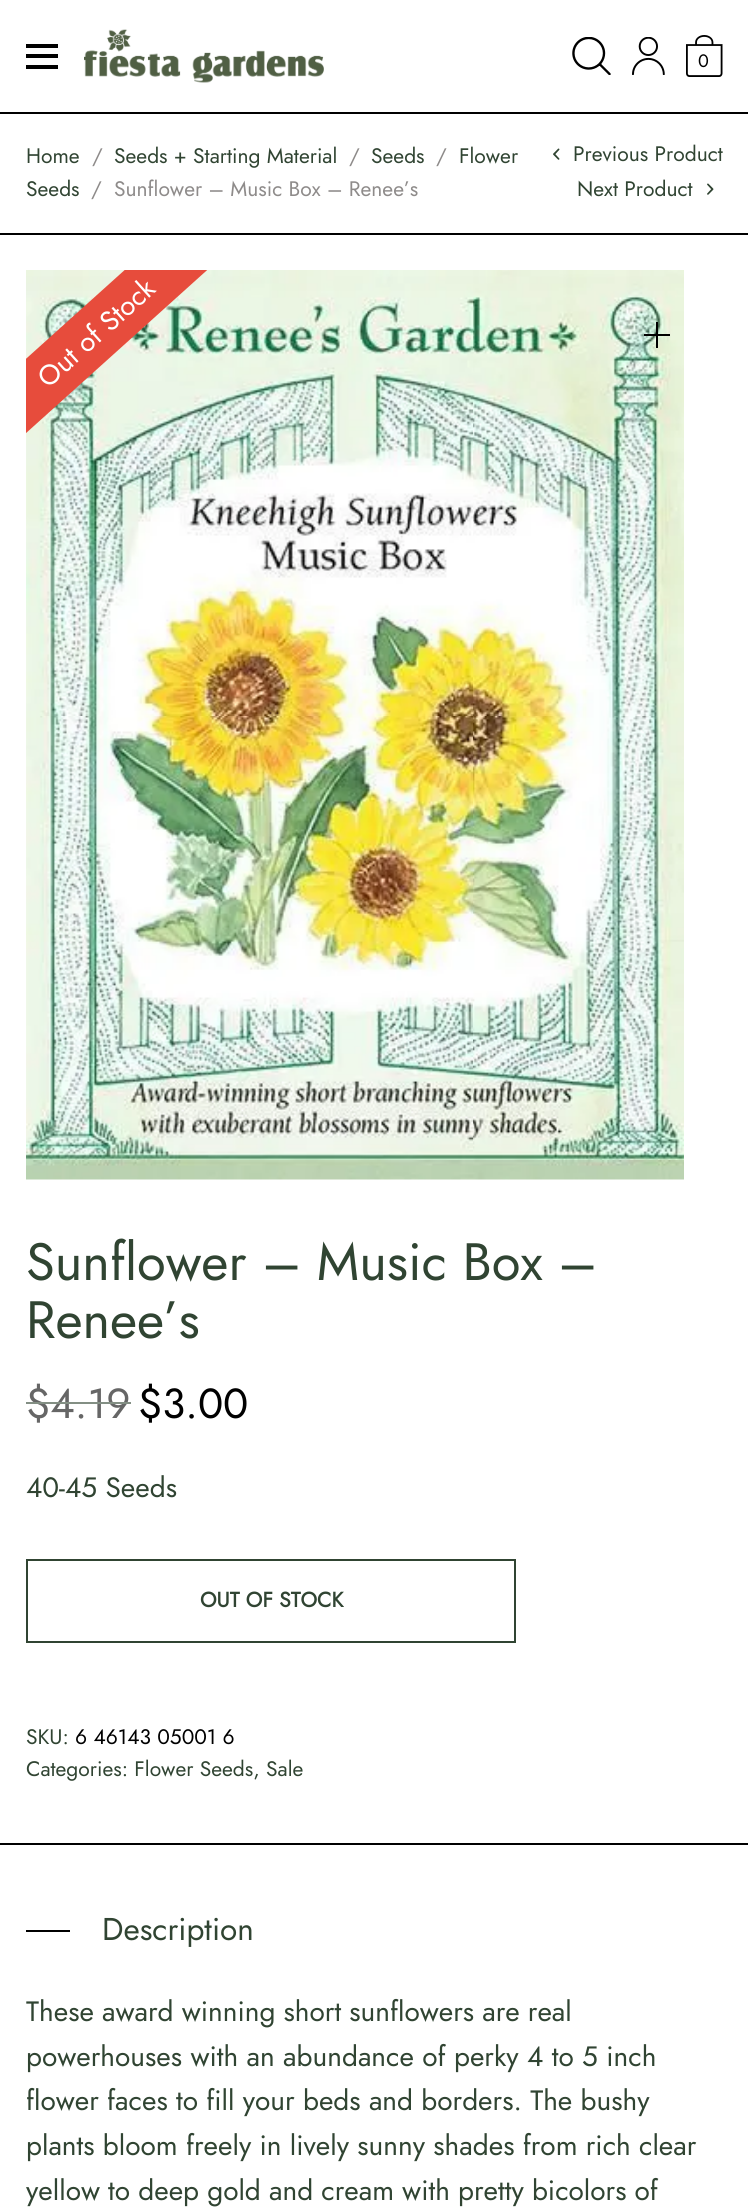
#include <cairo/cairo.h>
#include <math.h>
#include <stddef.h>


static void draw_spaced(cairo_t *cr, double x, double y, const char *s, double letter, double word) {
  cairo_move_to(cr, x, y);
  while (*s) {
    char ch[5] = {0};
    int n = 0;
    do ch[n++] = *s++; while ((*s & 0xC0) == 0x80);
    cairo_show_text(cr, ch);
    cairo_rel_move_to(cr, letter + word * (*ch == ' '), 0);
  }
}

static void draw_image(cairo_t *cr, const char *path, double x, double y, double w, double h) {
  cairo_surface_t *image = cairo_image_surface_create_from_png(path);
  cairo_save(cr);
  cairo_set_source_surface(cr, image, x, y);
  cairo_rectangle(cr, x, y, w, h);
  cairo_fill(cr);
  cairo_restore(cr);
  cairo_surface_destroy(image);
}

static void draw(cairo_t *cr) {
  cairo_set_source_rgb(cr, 1, 1, 1);
  cairo_paint(cr);
  cairo_set_source_rgb(cr, 0, 0, 0);
  cairo_rectangle(cr, 0, 112, 748, 2);
  cairo_fill(cr);
  cairo_rectangle(cr, 26, 44, 32, 4);
  cairo_fill(cr);
  cairo_rectangle(cr, 26, 54, 32, 4);
  cairo_fill(cr);
  cairo_rectangle(cr, 26, 65, 32, 4);
  cairo_fill(cr);
  draw_image(cr, "images/1.png", 84, 29, 240, 54);
  draw_image(cr, "images/2.png", 572, 37, 39, 38);
  draw_image(cr, "images/3.png", 632, 37, 33, 38);
  draw_image(cr, "images/4.png", 686, 35, 37, 42);
  cairo_rectangle(cr, 0, 233, 748, 2);
  cairo_fill(cr);
  draw_image(cr, "images/5.png", 553, 148, 7, 12);
  draw_image(cr, "images/6.png", 707, 183, 7, 12);
  draw_image(cr, "images/7.png", 26, 270, 658, 910);
  cairo_save(cr);
  cairo_rectangle(cr, 26, 270, 697, 910);
  cairo_clip(cr);
  cairo_set_source_rgb(cr, 231 / 255.0, 76 / 255.0, 60 / 255.0);
  cairo_new_path(cr);
  cairo_move_to(cr, -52, 429);
  cairo_line_to(cr, 208, 195);
  cairo_line_to(cr, 245, 236);
  cairo_line_to(cr, -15, 470);
  cairo_close_path(cr);
  cairo_fill(cr);
  cairo_restore(cr);
  cairo_rectangle(cr, 656, 322, 2, 26);
  cairo_fill(cr);
  cairo_rectangle(cr, 644, 334, 26, 2);
  cairo_fill(cr);
  cairo_rectangle(cr, 27, 1560, 488, 82);
  cairo_set_source_rgb(cr, 48 / 255.0, 68 / 255.0, 50 / 255.0);
  cairo_stroke(cr);
  cairo_set_source_rgb(cr, 0, 0, 0);
  cairo_rectangle(cr, 0, 1843, 748, 2);
  cairo_fill(cr);
  cairo_rectangle(cr, 26, 1930, 44, 2);
  cairo_fill(cr);
  cairo_select_font_face(cr, "Jost", CAIRO_FONT_SLANT_NORMAL, CAIRO_FONT_WEIGHT_NORMAL);
  cairo_set_font_size(cr, 18);
  cairo_move_to(cr, 698, 67);
  cairo_show_text(cr, "0");
  cairo_set_font_size(cr, 21);
  cairo_set_source_rgb(cr, 48 / 255.0, 68 / 255.0, 50 / 255.0);
  cairo_move_to(cr, 26, 163);
  cairo_show_text(cr, "Home");
  cairo_set_source_rgb(cr, 142 / 255.0, 139 / 255.0, 138 / 255.0);
  cairo_move_to(cr, 92, 163);
  cairo_show_text(cr, "/");
  cairo_set_source_rgb(cr, 48 / 255.0, 68 / 255.0, 50 / 255.0);
  cairo_move_to(cr, 114, 163);
  cairo_show_text(cr, "Seeds + Starting Material");
  cairo_set_source_rgb(cr, 142 / 255.0, 139 / 255.0, 138 / 255.0);
  cairo_move_to(cr, 349, 163);
  cairo_show_text(cr, "/");
  cairo_set_source_rgb(cr, 48 / 255.0, 68 / 255.0, 50 / 255.0);
  cairo_move_to(cr, 371, 163);
  cairo_show_text(cr, "Seeds");
  cairo_set_source_rgb(cr, 142 / 255.0, 139 / 255.0, 138 / 255.0);
  cairo_move_to(cr, 436, 163);
  cairo_show_text(cr, "/");
  cairo_set_source_rgb(cr, 48 / 255.0, 68 / 255.0, 50 / 255.0);
  cairo_move_to(cr, 459, 163);
  cairo_show_text(cr, "Flower");
  cairo_move_to(cr, 26, 196);
  cairo_show_text(cr, "Seeds");
  cairo_set_source_rgb(cr, 142 / 255.0, 139 / 255.0, 138 / 255.0);
  cairo_move_to(cr, 91, 196);
  cairo_show_text(cr, "/");
  cairo_move_to(cr, 114, 196);
  cairo_show_text(cr, "Sunflower – Music Box – Renee’s");
  cairo_set_source_rgb(cr, 48 / 255.0, 68 / 255.0, 50 / 255.0);
  cairo_move_to(cr, 573, 161);
  cairo_show_text(cr, "Previous Product");
  cairo_move_to(cr, 577, 196);
  cairo_show_text(cr, "Next Product");
  cairo_set_font_size(cr, 28);
  cairo_set_source_rgb(cr, 1, 1, 1);
  cairo_save(cr);
  cairo_translate(cr, 48, 389);
  cairo_rotate(cr, -42 * M_PI / 180);
  cairo_move_to(cr, 0, 0);
  cairo_show_text(cr, "Out of Stock");
  cairo_restore(cr);
  cairo_set_font_size(cr, 52.5);
  cairo_set_source_rgb(cr, 48 / 255.0, 68 / 255.0, 50 / 255.0);
  cairo_move_to(cr, 26, 1280);
  cairo_show_text(cr, "Sunflower – Music Box –");
  cairo_move_to(cr, 26, 1338);
  cairo_show_text(cr, "Renee’s");
  cairo_set_font_size(cr, 42);
  cairo_set_source_rgb(cr, 102 / 255.0, 102 / 255.0, 102 / 255.0);
  cairo_move_to(cr, 26, 1418);
  cairo_show_text(cr, "$4.19");
  cairo_set_source_rgb(cr, 131 / 255.0, 143 / 255.0, 132 / 255.0);
  cairo_rectangle(cr, 26, 1402, 105, 2);
  cairo_fill(cr);
  cairo_set_source_rgb(cr, 0, 0, 0);
  cairo_move_to(cr, 138, 1418);
  cairo_show_text(cr, "$3.00");
  cairo_set_font_size(cr, 28);
  cairo_set_source_rgb(cr, 48 / 255.0, 68 / 255.0, 50 / 255.0);
  cairo_move_to(cr, 26, 1497);
  cairo_show_text(cr, "40-45 Seeds");
  cairo_select_font_face(cr, "Jost", CAIRO_FONT_SLANT_NORMAL, CAIRO_FONT_WEIGHT_BOLD);
  cairo_set_font_size(cr, 21);
  cairo_move_to(cr, 200, 1607);
  cairo_show_text(cr, "OUT OF STOCK");
  cairo_select_font_face(cr, "Jost", CAIRO_FONT_SLANT_NORMAL, CAIRO_FONT_WEIGHT_NORMAL);
  cairo_move_to(cr, 26, 1744);
  cairo_show_text(cr, "SKU:");
  cairo_set_source_rgb(cr, 0, 0, 0);
  cairo_move_to(cr, 75, 1744);
  cairo_show_text(cr, "6 46143 05001 6");
  cairo_set_source_rgb(cr, 48 / 255.0, 68 / 255.0, 50 / 255.0);
  cairo_move_to(cr, 26, 1776);
  cairo_show_text(cr, "Categories: Flower Seeds, Sale");
  cairo_set_font_size(cr, 31.5);
  cairo_move_to(cr, 102, 1940);
  cairo_show_text(cr, "Description");
  cairo_set_font_size(cr, 28);
  draw_spaced(cr, 26, 2021, "These award winning short sunflowers are real", 0, -0.25);
  cairo_move_to(cr, 26, 2066);
  cairo_show_text(cr, "powerhouses with an abundance of perky 4 to 5 inch");
  draw_spaced(cr, 26, 2110, "flower faces to fill your beds and borders. The bushy", 0, -0.1);
  draw_spaced(cr, 26, 2155, "plants bloom freely in lively sunny shades from rich clear", 0, -0.1);
  draw_spaced(cr, 26, 2200, "yellow to deep gold and cream with pretty bicolors of", 0, -0.25);
}

int main(void) {
  cairo_surface_t *surface = cairo_image_surface_create(CAIRO_FORMAT_RGB24, 748, 2207);
  cairo_t *cr = cairo_create(surface);
  cairo_font_options_t *options = cairo_font_options_create();
  cairo_font_options_set_hint_metrics(options, CAIRO_HINT_METRICS_OFF);
  cairo_font_options_set_hint_style(options, CAIRO_HINT_STYLE_NONE);
  cairo_set_font_options(cr, options);
  cairo_set_miter_limit(cr, 4);
  draw(cr);
  cairo_surface_write_to_png(surface, "out.png");
  cairo_font_options_destroy(options);
  cairo_destroy(cr);
  cairo_surface_destroy(surface);
  return 0;
}
